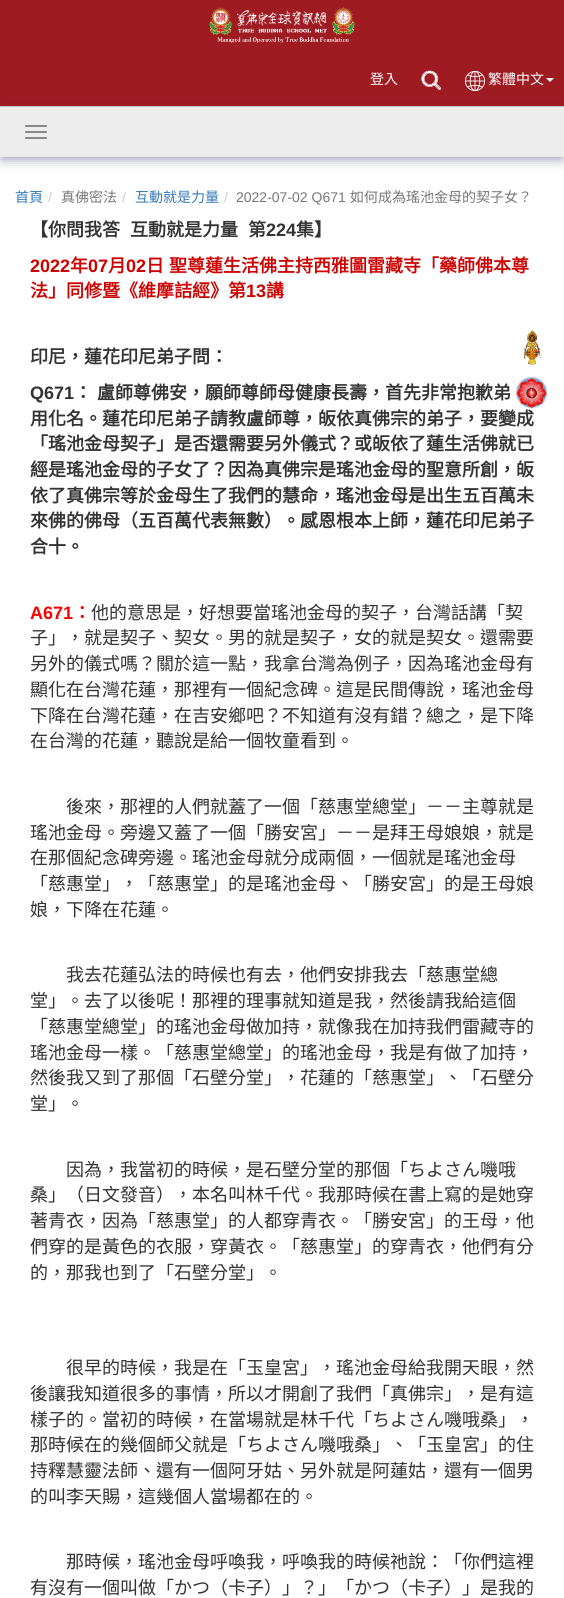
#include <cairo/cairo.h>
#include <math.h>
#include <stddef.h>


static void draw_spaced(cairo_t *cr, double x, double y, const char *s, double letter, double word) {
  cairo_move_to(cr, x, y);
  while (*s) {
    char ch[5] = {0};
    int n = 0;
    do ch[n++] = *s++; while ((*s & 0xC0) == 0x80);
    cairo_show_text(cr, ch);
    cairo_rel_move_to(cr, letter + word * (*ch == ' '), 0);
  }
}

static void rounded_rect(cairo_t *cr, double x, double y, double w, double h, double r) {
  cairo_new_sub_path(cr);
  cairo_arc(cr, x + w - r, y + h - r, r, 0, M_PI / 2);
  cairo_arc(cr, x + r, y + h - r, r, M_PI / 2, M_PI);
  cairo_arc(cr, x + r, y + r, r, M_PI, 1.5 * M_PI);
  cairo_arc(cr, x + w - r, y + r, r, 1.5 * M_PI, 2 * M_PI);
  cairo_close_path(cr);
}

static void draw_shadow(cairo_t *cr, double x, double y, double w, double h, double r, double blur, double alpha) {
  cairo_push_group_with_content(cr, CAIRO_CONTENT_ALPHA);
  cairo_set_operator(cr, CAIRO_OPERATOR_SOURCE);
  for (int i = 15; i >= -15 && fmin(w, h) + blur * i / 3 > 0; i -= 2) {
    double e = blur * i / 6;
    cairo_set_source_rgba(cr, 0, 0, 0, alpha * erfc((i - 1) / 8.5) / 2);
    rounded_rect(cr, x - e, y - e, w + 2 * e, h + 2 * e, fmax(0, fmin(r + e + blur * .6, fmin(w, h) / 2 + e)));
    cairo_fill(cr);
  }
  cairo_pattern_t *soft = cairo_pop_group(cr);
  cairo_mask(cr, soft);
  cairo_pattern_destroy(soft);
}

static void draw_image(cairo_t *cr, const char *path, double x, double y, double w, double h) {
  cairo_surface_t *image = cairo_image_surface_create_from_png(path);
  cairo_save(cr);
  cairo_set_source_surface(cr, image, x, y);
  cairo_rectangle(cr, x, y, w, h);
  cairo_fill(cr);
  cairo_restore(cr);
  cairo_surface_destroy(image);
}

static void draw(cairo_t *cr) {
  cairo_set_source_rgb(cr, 1, 1, 1);
  cairo_paint(cr);
  cairo_set_source_rgb(cr, 159 / 255.0, 27 / 255.0, 34 / 255.0);
  cairo_rectangle(cr, 0, 0, 564, 106);
  cairo_fill(cr);
  cairo_set_source_rgb(cr, 204 / 255.0, 204 / 255.0, 204 / 255.0);
  cairo_rectangle(cr, 0, 106, 564, 1);
  cairo_fill(cr);
  draw_image(cr, "images/1.png", 209, 7, 146, 36);
  draw_image(cr, "images/2.png", 421, 70, 21, 20);
  draw_image(cr, "images/3.png", 465, 71, 20, 20);
  cairo_set_source_rgb(cr, 1, 1, 1);
  cairo_new_path(cr);
  cairo_move_to(cr, 546, 78);
  cairo_line_to(cr, 554, 78);
  cairo_line_to(cr, 550, 82);
  cairo_close_path(cr);
  cairo_fill(cr);
  cairo_set_source_rgb(cr, 51 / 255.0, 51 / 255.0, 102 / 255.0);
  draw_shadow(cr, 2, 113, 560, 46, 0, 6, 0.5);
  cairo_set_source_rgb(cr, 237 / 255.0, 237 / 255.0, 237 / 255.0);
  cairo_rectangle(cr, 0, 107, 564, 49);
  cairo_fill(cr);
  cairo_set_source_rgb(cr, 231 / 255.0, 231 / 255.0, 231 / 255.0);
  cairo_rectangle(cr, 0, 156, 564, 1);
  cairo_fill(cr);
  cairo_set_source_rgb(cr, 136 / 255.0, 136 / 255.0, 136 / 255.0);
  rounded_rect(cr, 25, 125, 22, 2, 1);
  cairo_fill(cr);
  rounded_rect(cr, 25, 131, 22, 2, 1);
  cairo_fill(cr);
  rounded_rect(cr, 25, 137, 22, 2, 1);
  cairo_fill(cr);
  draw_image(cr, "images/4.png", 524, 330, 17, 35);
  draw_image(cr, "images/5.png", 514, 376, 34, 33);
  cairo_select_font_face(cr, "Noto Sans CJK TC", CAIRO_FONT_SLANT_NORMAL, CAIRO_FONT_WEIGHT_NORMAL);
  cairo_set_font_size(cr, 14);
  cairo_set_source_rgb(cr, 1, 1, 1);
  cairo_move_to(cr, 370, 84);
  cairo_show_text(cr, "登入");
  cairo_move_to(cr, 488, 84);
  cairo_show_text(cr, "繁體中文");
  cairo_set_source_rgb(cr, 51 / 255.0, 122 / 255.0, 183 / 255.0);
  cairo_move_to(cr, 15, 202);
  cairo_show_text(cr, "首頁");
  cairo_select_font_face(cr, "Liberation Sans", CAIRO_FONT_SLANT_NORMAL, CAIRO_FONT_WEIGHT_NORMAL);
  cairo_set_source_rgb(cr, 204 / 255.0, 204 / 255.0, 204 / 255.0);
  cairo_move_to(cr, 48, 202);
  cairo_show_text(cr, "/");
  cairo_select_font_face(cr, "Noto Sans CJK TC", CAIRO_FONT_SLANT_NORMAL, CAIRO_FONT_WEIGHT_NORMAL);
  cairo_set_source_rgb(cr, 119 / 255.0, 119 / 255.0, 119 / 255.0);
  cairo_move_to(cr, 61, 202);
  cairo_show_text(cr, "真佛密法");
  cairo_select_font_face(cr, "Liberation Sans", CAIRO_FONT_SLANT_NORMAL, CAIRO_FONT_WEIGHT_NORMAL);
  cairo_set_source_rgb(cr, 204 / 255.0, 204 / 255.0, 204 / 255.0);
  cairo_move_to(cr, 122, 202);
  cairo_show_text(cr, "/");
  cairo_select_font_face(cr, "Noto Sans CJK TC", CAIRO_FONT_SLANT_NORMAL, CAIRO_FONT_WEIGHT_NORMAL);
  cairo_set_source_rgb(cr, 51 / 255.0, 122 / 255.0, 183 / 255.0);
  cairo_move_to(cr, 135, 202);
  cairo_show_text(cr, "互動就是力量");
  cairo_select_font_face(cr, "Liberation Sans", CAIRO_FONT_SLANT_NORMAL, CAIRO_FONT_WEIGHT_NORMAL);
  cairo_set_source_rgb(cr, 204 / 255.0, 204 / 255.0, 204 / 255.0);
  cairo_move_to(cr, 224, 202);
  cairo_show_text(cr, "/");
  cairo_set_source_rgb(cr, 119 / 255.0, 119 / 255.0, 119 / 255.0);
  cairo_move_to(cr, 236, 202);
  cairo_show_text(cr, "2022-07-02 Q671");
  cairo_select_font_face(cr, "Noto Sans CJK TC", CAIRO_FONT_SLANT_NORMAL, CAIRO_FONT_WEIGHT_NORMAL);
  cairo_move_to(cr, 350, 202);
  cairo_show_text(cr, "如何成為瑤池金母的契子女？");
  cairo_select_font_face(cr, "Noto Sans CJK TC", CAIRO_FONT_SLANT_NORMAL, CAIRO_FONT_WEIGHT_BOLD);
  cairo_set_font_size(cr, 18);
  cairo_set_source_rgb(cr, 51 / 255.0, 51 / 255.0, 51 / 255.0);
  cairo_move_to(cr, 30, 236);
  cairo_show_text(cr, "【你問我答");
  cairo_move_to(cr, 130, 236);
  cairo_show_text(cr, "互動就是力量");
  cairo_move_to(cr, 248, 236);
  cairo_show_text(cr, "第");
  cairo_select_font_face(cr, "Liberation Sans", CAIRO_FONT_SLANT_NORMAL, CAIRO_FONT_WEIGHT_BOLD);
  cairo_move_to(cr, 266, 236);
  cairo_show_text(cr, "224");
  cairo_select_font_face(cr, "Noto Sans CJK TC", CAIRO_FONT_SLANT_NORMAL, CAIRO_FONT_WEIGHT_BOLD);
  cairo_move_to(cr, 296, 236);
  cairo_show_text(cr, "集】");
  cairo_select_font_face(cr, "Liberation Sans", CAIRO_FONT_SLANT_NORMAL, CAIRO_FONT_WEIGHT_BOLD);
  cairo_set_source_rgb(cr, 206 / 255.0, 0, 0);
  cairo_move_to(cr, 30, 272);
  cairo_show_text(cr, "2022");
  cairo_select_font_face(cr, "Noto Sans CJK TC", CAIRO_FONT_SLANT_NORMAL, CAIRO_FONT_WEIGHT_BOLD);
  cairo_move_to(cr, 70, 272);
  cairo_show_text(cr, "年");
  cairo_select_font_face(cr, "Liberation Sans", CAIRO_FONT_SLANT_NORMAL, CAIRO_FONT_WEIGHT_BOLD);
  cairo_move_to(cr, 88, 272);
  cairo_show_text(cr, "07");
  cairo_select_font_face(cr, "Noto Sans CJK TC", CAIRO_FONT_SLANT_NORMAL, CAIRO_FONT_WEIGHT_BOLD);
  cairo_move_to(cr, 108, 272);
  cairo_show_text(cr, "月");
  cairo_select_font_face(cr, "Liberation Sans", CAIRO_FONT_SLANT_NORMAL, CAIRO_FONT_WEIGHT_BOLD);
  cairo_move_to(cr, 126, 272);
  cairo_show_text(cr, "02");
  cairo_select_font_face(cr, "Noto Sans CJK TC", CAIRO_FONT_SLANT_NORMAL, CAIRO_FONT_WEIGHT_BOLD);
  draw_spaced(cr, 146, 272, "日 聖尊蓮生活佛主持西雅圖雷藏寺「藥師佛本尊", 0, 1);
  cairo_move_to(cr, 30, 297);
  cairo_show_text(cr, "法」同修暨《維摩詰經》第");
  cairo_select_font_face(cr, "Liberation Sans", CAIRO_FONT_SLANT_NORMAL, CAIRO_FONT_WEIGHT_BOLD);
  cairo_move_to(cr, 246, 297);
  cairo_show_text(cr, "13");
  cairo_select_font_face(cr, "Noto Sans CJK TC", CAIRO_FONT_SLANT_NORMAL, CAIRO_FONT_WEIGHT_BOLD);
  cairo_move_to(cr, 266, 297);
  cairo_show_text(cr, "講");
  cairo_set_source_rgb(cr, 51 / 255.0, 51 / 255.0, 51 / 255.0);
  cairo_move_to(cr, 30, 363);
  cairo_show_text(cr, "印尼，蓮花印尼弟子問：");
  cairo_select_font_face(cr, "Liberation Sans", CAIRO_FONT_SLANT_NORMAL, CAIRO_FONT_WEIGHT_BOLD);
  cairo_move_to(cr, 30, 399);
  cairo_show_text(cr, "Q671");
  cairo_select_font_face(cr, "Noto Sans CJK TC", CAIRO_FONT_SLANT_NORMAL, CAIRO_FONT_WEIGHT_BOLD);
  draw_spaced(cr, 74, 399, "： 盧師尊佛安，願師尊師母健康長壽，首先非常抱歉弟", 0, 1);
  cairo_move_to(cr, 30, 425);
  cairo_show_text(cr, "用化名。蓮花印尼弟子請教盧師尊，皈依真佛宗的弟子，要變成");
  cairo_move_to(cr, 30, 450);
  cairo_show_text(cr, "「瑤池金母契子」是否還需要另外儀式？或皈依了蓮生活佛就已");
  cairo_move_to(cr, 30, 476);
  cairo_show_text(cr, "經是瑤池金母的子女了？因為真佛宗是瑤池金母的聖意所創，皈");
  cairo_move_to(cr, 30, 502);
  cairo_show_text(cr, "依了真佛宗等於金母生了我們的慧命，瑤池金母是出生五百萬未");
  cairo_move_to(cr, 30, 527);
  cairo_show_text(cr, "來佛的佛母（五百萬代表無數）。感恩根本上師，蓮花印尼弟子");
  cairo_move_to(cr, 30, 553);
  cairo_show_text(cr, "合十。");
  cairo_select_font_face(cr, "Liberation Sans", CAIRO_FONT_SLANT_NORMAL, CAIRO_FONT_WEIGHT_BOLD);
  cairo_set_source_rgb(cr, 1, 0, 0);
  cairo_move_to(cr, 30, 619);
  cairo_show_text(cr, "A671");
  cairo_select_font_face(cr, "Noto Sans CJK TC", CAIRO_FONT_SLANT_NORMAL, CAIRO_FONT_WEIGHT_BOLD);
  cairo_move_to(cr, 73, 619);
  cairo_show_text(cr, "：");
  cairo_select_font_face(cr, "Noto Sans CJK TC", CAIRO_FONT_SLANT_NORMAL, CAIRO_FONT_WEIGHT_NORMAL);
  cairo_set_source_rgb(cr, 51 / 255.0, 51 / 255.0, 51 / 255.0);
  cairo_move_to(cr, 91, 619);
  cairo_show_text(cr, "他的意思是，好想要當瑤池金母的契子，台灣話講「契");
  cairo_move_to(cr, 30, 644);
  cairo_show_text(cr, "子」，就是契子、契女。男的就是契子，女的就是契女。還需要");
  cairo_move_to(cr, 30, 670);
  cairo_show_text(cr, "另外的儀式嗎？關於這一點，我拿台灣為例子，因為瑤池金母有");
  cairo_move_to(cr, 30, 696);
  cairo_show_text(cr, "顯化在台灣花蓮，那裡有一個紀念碑。這是民間傳說，瑤池金母");
  cairo_move_to(cr, 30, 722);
  cairo_show_text(cr, "下降在台灣花蓮，在吉安鄉吧？不知道有沒有錯？總之，是下降");
  cairo_move_to(cr, 30, 747);
  cairo_show_text(cr, "在台灣的花蓮，聽說是給一個牧童看到。");
  cairo_move_to(cr, 66, 813);
  cairo_show_text(cr, "後來，那裡的人們就蓋了一個「慈惠堂總堂」－－主尊就是");
  cairo_move_to(cr, 30, 839);
  cairo_show_text(cr, "瑤池金母。旁邊又蓋了一個「勝安宮」－－是拜王母娘娘，就是");
  cairo_move_to(cr, 30, 864);
  cairo_show_text(cr, "在那個紀念碑旁邊。瑤池金母就分成兩個，一個就是瑤池金母");
  cairo_move_to(cr, 30, 890);
  cairo_show_text(cr, "「慈惠堂」，「慈惠堂」的是瑤池金母、「勝安宮」的是王母娘");
  cairo_move_to(cr, 30, 916);
  cairo_show_text(cr, "娘，下降在花蓮。");
  cairo_move_to(cr, 66, 981);
  cairo_show_text(cr, "我去花蓮弘法的時候也有去，他們安排我去「慈惠堂總");
  cairo_move_to(cr, 30, 1007);
  cairo_show_text(cr, "堂」。去了以後呢！那裡的理事就知道是我，然後請我給這個");
  cairo_move_to(cr, 30, 1033);
  cairo_show_text(cr, "「慈惠堂總堂」的瑤池金母做加持，就像我在加持我們雷藏寺的");
  cairo_move_to(cr, 30, 1059);
  cairo_show_text(cr, "瑤池金母一樣。「慈惠堂總堂」的瑤池金母，我是有做了加持，");
  cairo_move_to(cr, 30, 1084);
  cairo_show_text(cr, "然後我又到了那個「石壁分堂」，花蓮的「慈惠堂」、「石壁分");
  cairo_move_to(cr, 30, 1110);
  cairo_show_text(cr, "堂」。");
  cairo_move_to(cr, 66, 1176);
  cairo_show_text(cr, "因為，我當初的時候，是石壁分堂的那個「ちよさん嘰哦");
  cairo_move_to(cr, 30, 1201);
  cairo_show_text(cr, "桑」（日文發音），本名叫林千代。我那時候在書上寫的是她穿");
  cairo_move_to(cr, 30, 1227);
  cairo_show_text(cr, "著青衣，因為「慈惠堂」的人都穿青衣。「勝安宮」的王母，他");
  cairo_move_to(cr, 30, 1253);
  cairo_show_text(cr, "們穿的是黃色的衣服，穿黃衣。「慈惠堂」的穿青衣，他們有分");
  cairo_move_to(cr, 30, 1279);
  cairo_show_text(cr, "的，那我也到了「石壁分堂」。");
  cairo_move_to(cr, 66, 1374);
  cairo_show_text(cr, "很早的時候，我是在「玉皇宮」，瑤池金母給我開天眼，然");
  cairo_move_to(cr, 30, 1400);
  cairo_show_text(cr, "後讓我知道很多的事情，所以才開創了我們「真佛宗」，是有這");
  cairo_move_to(cr, 30, 1426);
  cairo_show_text(cr, "樣子的。當初的時候，在當場就是林千代「ちよさん嘰哦桑」，");
  cairo_move_to(cr, 30, 1451);
  cairo_show_text(cr, "那時候在的幾個師父就是「ちよさん嘰哦桑」、「玉皇宮」的住");
  cairo_move_to(cr, 30, 1477);
  cairo_show_text(cr, "持釋慧靈法師、還有一個阿牙姑、另外就是阿蓮姑，還有一個男");
  cairo_move_to(cr, 30, 1503);
  cairo_show_text(cr, "的叫李天賜，這幾個人當場都在的。");
  cairo_move_to(cr, 66, 1568);
  cairo_show_text(cr, "那時候，瑤池金母呼喚我，呼喚我的時候祂說：「你們這裡");
  cairo_move_to(cr, 30, 1594);
  cairo_show_text(cr, "有沒有一個叫做「かつ（卡子）」？」「かつ（卡子）」是我的");
}

int main(void) {
  cairo_surface_t *surface = cairo_image_surface_create(CAIRO_FORMAT_RGB24, 564, 1598);
  cairo_t *cr = cairo_create(surface);
  cairo_font_options_t *options = cairo_font_options_create();
  cairo_font_options_set_hint_metrics(options, CAIRO_HINT_METRICS_OFF);
  cairo_font_options_set_hint_style(options, CAIRO_HINT_STYLE_NONE);
  cairo_set_font_options(cr, options);
  cairo_set_miter_limit(cr, 4);
  draw(cr);
  cairo_surface_write_to_png(surface, "out.png");
  cairo_font_options_destroy(options);
  cairo_destroy(cr);
  cairo_surface_destroy(surface);
  return 0;
}
